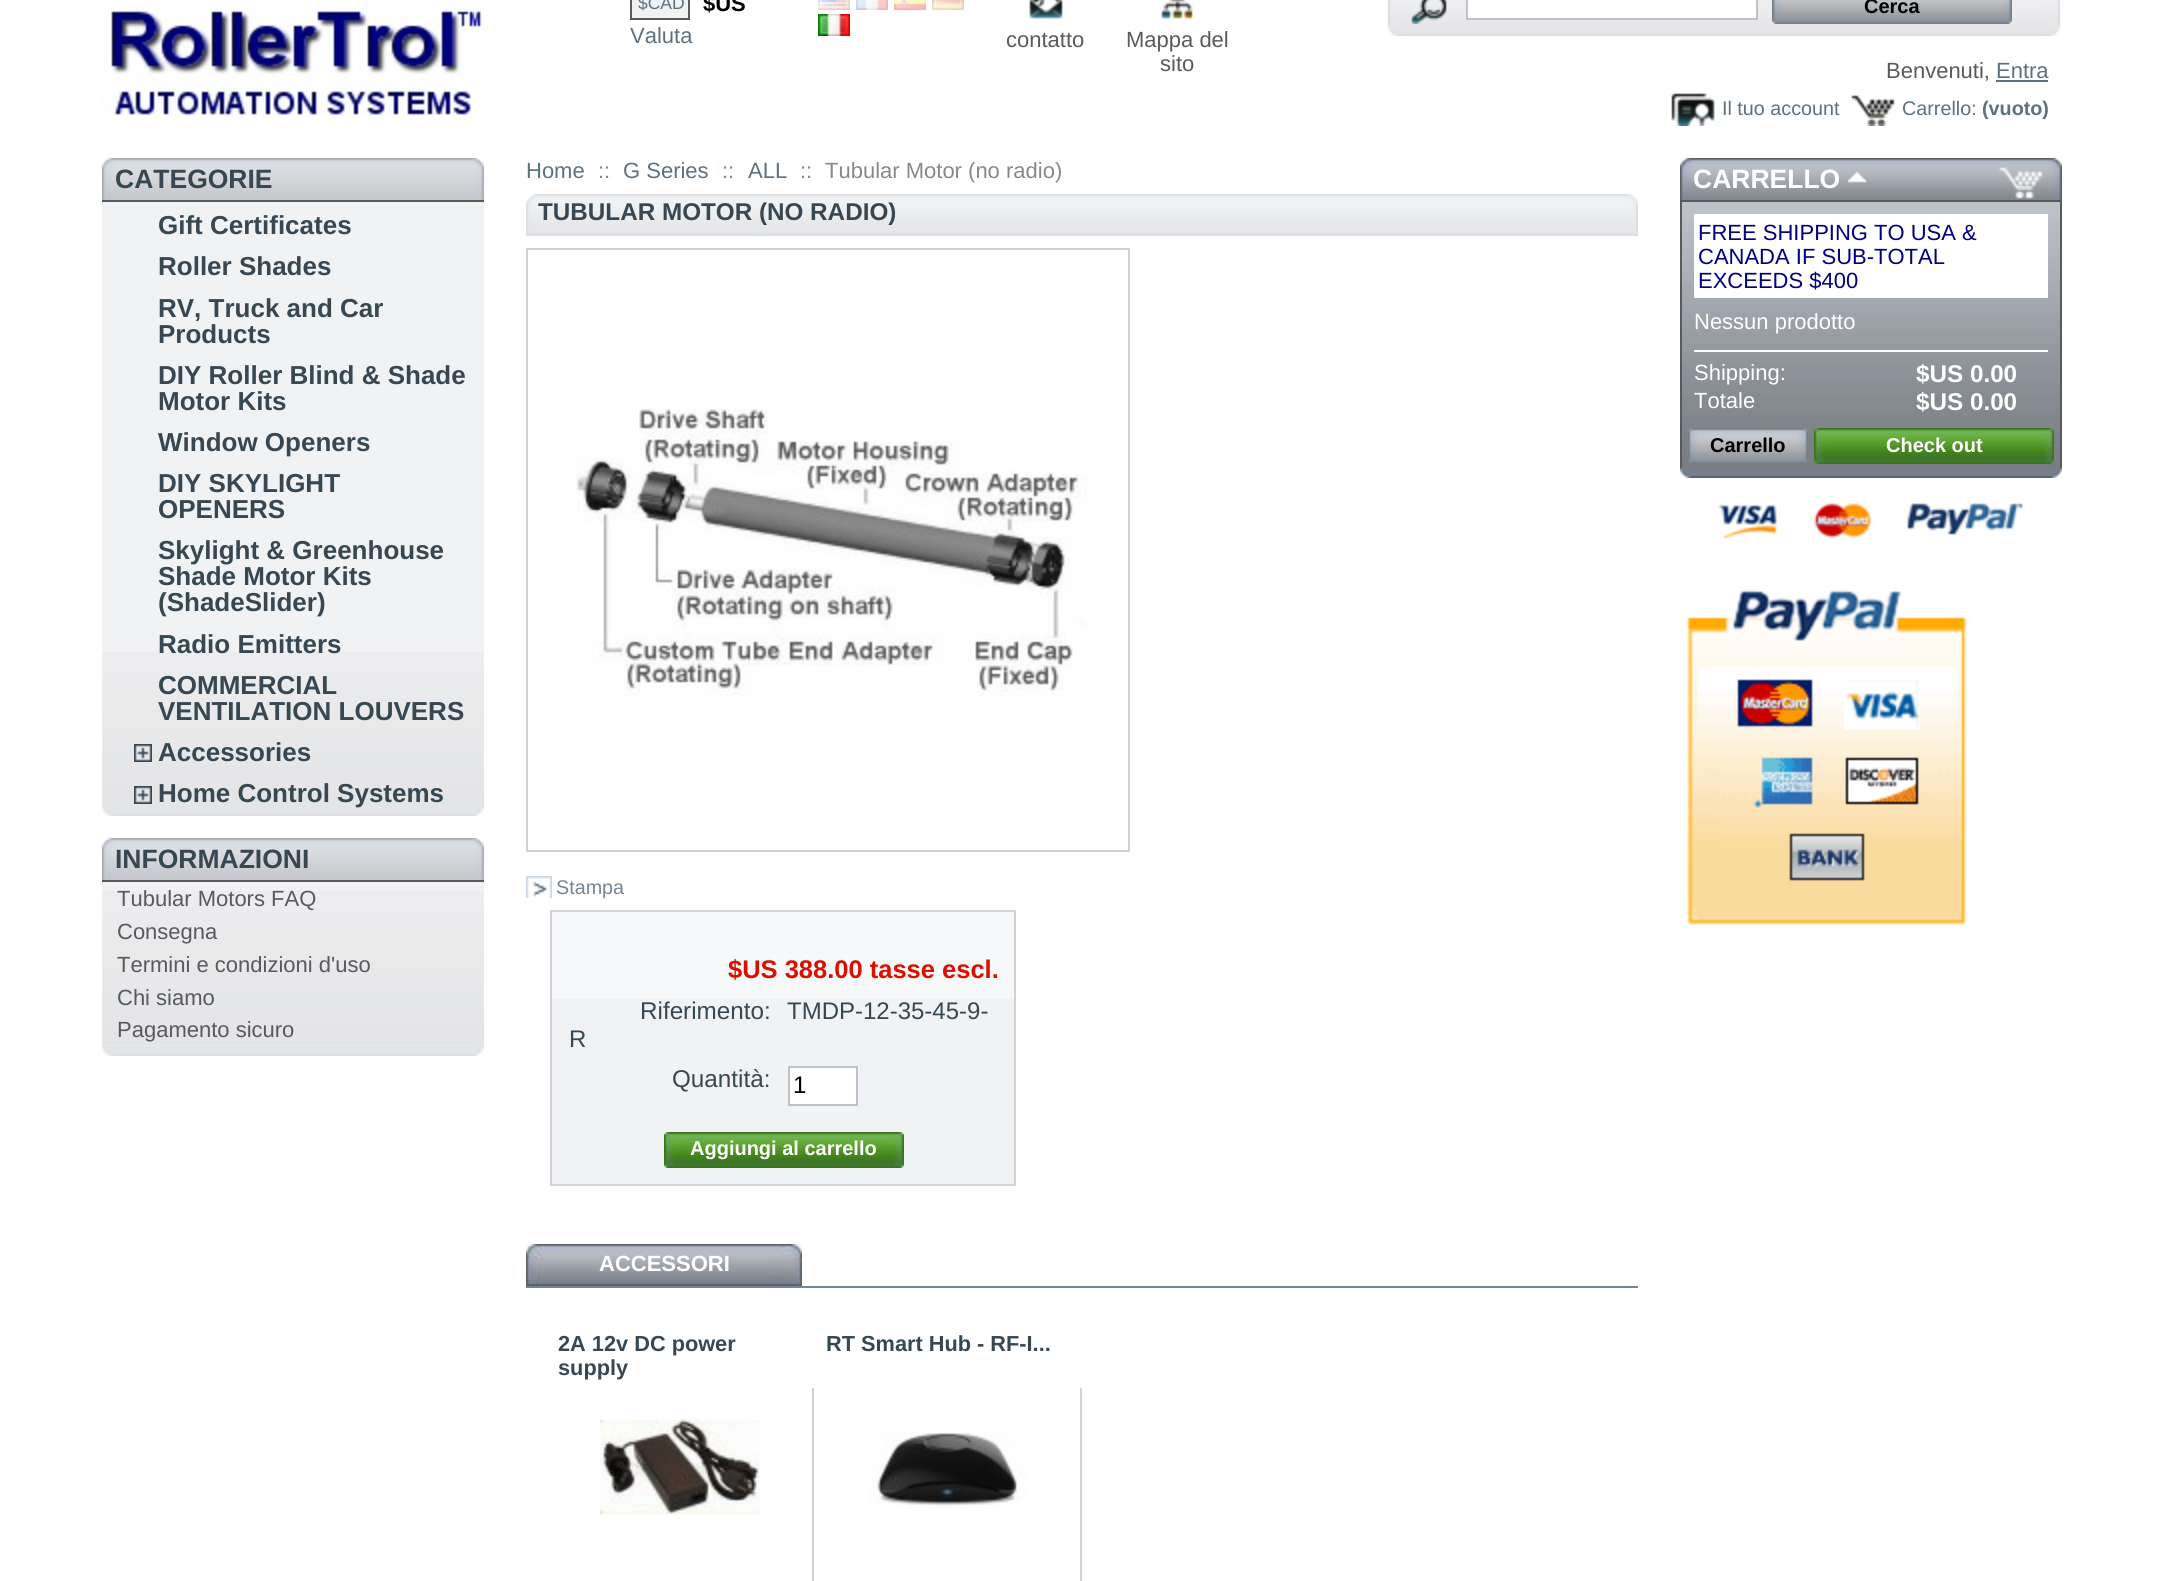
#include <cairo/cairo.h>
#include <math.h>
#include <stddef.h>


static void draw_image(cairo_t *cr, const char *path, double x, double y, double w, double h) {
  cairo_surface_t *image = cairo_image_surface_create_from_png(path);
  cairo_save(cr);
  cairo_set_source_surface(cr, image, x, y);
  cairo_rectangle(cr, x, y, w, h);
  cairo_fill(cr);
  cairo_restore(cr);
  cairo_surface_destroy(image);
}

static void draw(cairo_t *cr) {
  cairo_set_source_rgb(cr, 1, 1, 1);
  cairo_paint(cr);
  draw_image(cr, "images/1.png", 102, 2, 380, 114);
  cairo_set_source_rgb(cr, 241 / 255.0, 242 / 255.0, 244 / 255.0);
  cairo_rectangle(cr, 631, -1, 58, 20);
  cairo_fill_preserve(cr);
  cairo_set_source_rgb(cr, 89 / 255.0, 90 / 255.0, 94 / 255.0);
  cairo_stroke(cr);
  draw_image(cr, "images/2.png", 818, 0, 32, 10);
  draw_image(cr, "images/3.png", 856, 0, 32, 10);
  draw_image(cr, "images/4.png", 894, 0, 32, 10);
  draw_image(cr, "images/5.png", 932, 0, 32, 10);
  draw_image(cr, "images/6.png", 818, 14, 32, 22);
  draw_image(cr, "images/7.png", 1388, 0, 672, 36);
  draw_image(cr, "images/8.png", 1411, 0, 36, 24);
  cairo_set_source_rgb(cr, 1, 1, 1);
  cairo_rectangle(cr, 1467, -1, 290, 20);
  cairo_fill_preserve(cr);
  cairo_set_source_rgb(cr, 189 / 255.0, 194 / 255.0, 201 / 255.0);
  cairo_stroke(cr);
  cairo_set_source_rgb(cr, 239 / 255.0, 239 / 255.0, 239 / 255.0);
  cairo_rectangle(cr, 1772, 21, 240, 3);
  cairo_fill(cr);
  draw_image(cr, "images/9.png", 1772, 0, 240, 24);
  draw_image(cr, "images/10.png", 1029, 0, 34, 19);
  draw_image(cr, "images/11.png", 1161, 0, 32, 19);
  cairo_set_source_rgb(cr, 93 / 255.0, 113 / 255.0, 126 / 255.0);
  cairo_rectangle(cr, 1996, 80, 52, 2);
  cairo_fill(cr);
  draw_image(cr, "images/12.png", 1671, 93, 44, 33);
  draw_image(cr, "images/13.png", 1851, 95, 44, 31);
  draw_image(cr, "images/14.png", 102, 806, 382, 10);
  draw_image(cr, "images/15.png", 102, 158, 382, 42);
  cairo_set_source_rgb(cr, 89 / 255.0, 90 / 255.0, 94 / 255.0);
  cairo_rectangle(cr, 102, 200, 382, 2);
  cairo_fill(cr);
  cairo_set_source_rgb(cr, 241 / 255.0, 242 / 255.0, 244 / 255.0);
  cairo_rectangle(cr, 102, 202, 382, 450);
  cairo_fill(cr);
  draw_image(cr, "images/16.png", 102, 652, 382, 154);
  draw_image(cr, "images/17.png", 134, 744, 18, 18);
  draw_image(cr, "images/18.png", 134, 786, 18, 18);
  draw_image(cr, "images/14.png", 102, 1046, 382, 10);
  draw_image(cr, "images/15.png", 102, 838, 382, 42);
  cairo_set_source_rgb(cr, 89 / 255.0, 90 / 255.0, 94 / 255.0);
  cairo_rectangle(cr, 102, 880, 382, 2);
  cairo_fill(cr);
  cairo_set_source_rgb(cr, 241 / 255.0, 242 / 255.0, 244 / 255.0);
  cairo_rectangle(cr, 102, 882, 382, 9);
  cairo_fill(cr);
  draw_image(cr, "images/19.png", 102, 891, 382, 155);
  draw_image(cr, "images/20.png", 526, 194, 1112, 42);
  cairo_rectangle(cr, 527, 249, 602, 602);
  cairo_set_source_rgb(cr, 208 / 255.0, 209 / 255.0, 213 / 255.0);
  cairo_stroke(cr);
  draw_image(cr, "images/21.png", 576, 409, 512, 287);
  draw_image(cr, "images/22.png", 526, 876, 26, 22);
  cairo_set_source_rgb(cr, 241 / 255.0, 242 / 255.0, 244 / 255.0);
  cairo_rectangle(cr, 552, 999, 462, 185);
  cairo_fill(cr);
  cairo_set_source_rgb(cr, 247 / 255.0, 248 / 255.0, 249 / 255.0);
  cairo_rectangle(cr, 552, 912, 462, 87);
  cairo_fill(cr);
  cairo_rectangle(cr, 551, 911, 464, 274);
  cairo_set_source_rgb(cr, 208 / 255.0, 211 / 255.0, 216 / 255.0);
  cairo_stroke(cr);
  cairo_set_source_rgb(cr, 1, 1, 1);
  cairo_rectangle(cr, 789, 1067, 68, 38);
  cairo_fill_preserve(cr);
  cairo_set_source_rgb(cr, 189 / 255.0, 194 / 255.0, 201 / 255.0);
  cairo_stroke(cr);
  cairo_set_source_rgb(cr, 239 / 255.0, 239 / 255.0, 239 / 255.0);
  cairo_rectangle(cr, 664, 1132, 240, 36);
  cairo_fill(cr);
  draw_image(cr, "images/23.png", 664, 1132, 240, 36);
  cairo_set_source_rgb(cr, 118 / 255.0, 131 / 255.0, 155 / 255.0);
  cairo_rectangle(cr, 526, 1286, 1112, 2);
  cairo_fill(cr);
  draw_image(cr, "images/24.png", 526, 1244, 276, 42);
  cairo_set_source_rgb(cr, 208 / 255.0, 211 / 255.0, 216 / 255.0);
  cairo_rectangle(cr, 812, 1388, 2, 193);
  cairo_fill(cr);
  draw_image(cr, "images/25.png", 600, 1419, 160, 97);
  cairo_rectangle(cr, 1080, 1388, 2, 193);
  cairo_fill(cr);
  draw_image(cr, "images/26.png", 870, 1432, 156, 77);
  draw_image(cr, "images/27.png", 1680, 468, 382, 10);
  draw_image(cr, "images/28.png", 1680, 158, 382, 42);
  cairo_set_source_rgb(cr, 89 / 255.0, 90 / 255.0, 94 / 255.0);
  cairo_rectangle(cr, 1680, 200, 382, 2);
  cairo_fill(cr);
  draw_image(cr, "images/29.png", 1848, 171, 18, 12);
  cairo_set_source_rgb(cr, 189 / 255.0, 194 / 255.0, 201 / 255.0);
  cairo_rectangle(cr, 1682, 202, 378, 17);
  cairo_fill(cr);
  draw_image(cr, "images/30.png", 1682, 219, 378, 249);
  cairo_set_source_rgb(cr, 89 / 255.0, 90 / 255.0, 94 / 255.0);
  cairo_rectangle(cr, 2060, 202, 2, 266);
  cairo_fill(cr);
  cairo_rectangle(cr, 1680, 202, 2, 266);
  cairo_fill(cr);
  cairo_set_source_rgb(cr, 1, 1, 1);
  cairo_rectangle(cr, 1694, 214, 354, 84);
  cairo_fill(cr);
  cairo_rectangle(cr, 1694, 350, 354, 2);
  cairo_fill(cr);
  draw_image(cr, "images/31.png", 1688, 428, 120, 36);
  draw_image(cr, "images/32.png", 1814, 428, 240, 36);
  draw_image(cr, "images/33.png", 1718, 503, 60, 39);
  draw_image(cr, "images/34.png", 1813, 503, 60, 36);
  draw_image(cr, "images/35.png", 1907, 503, 116, 32);
  draw_image(cr, "images/36.png", 1687, 589, 280, 336);
  cairo_select_font_face(cr, "Liberation Sans", CAIRO_FONT_SLANT_NORMAL, CAIRO_FONT_WEIGHT_NORMAL);
  cairo_set_font_size(cr, 17.5);
  cairo_set_source_rgb(cr, 93 / 255.0, 113 / 255.0, 126 / 255.0);
  cairo_move_to(cr, 638, 9);
  cairo_show_text(cr, "$CAD");
  cairo_select_font_face(cr, "Liberation Sans", CAIRO_FONT_SLANT_NORMAL, CAIRO_FONT_WEIGHT_BOLD);
  cairo_set_font_size(cr, 22);
  cairo_set_source_rgb(cr, 0, 0, 0);
  cairo_move_to(cr, 703, 11);
  cairo_show_text(cr, "$US");
  cairo_select_font_face(cr, "Liberation Sans", CAIRO_FONT_SLANT_NORMAL, CAIRO_FONT_WEIGHT_NORMAL);
  cairo_set_source_rgb(cr, 93 / 255.0, 113 / 255.0, 126 / 255.0);
  cairo_move_to(cr, 630, 43);
  cairo_show_text(cr, "Valuta");
  cairo_select_font_face(cr, "Liberation Sans", CAIRO_FONT_SLANT_NORMAL, CAIRO_FONT_WEIGHT_BOLD);
  cairo_set_font_size(cr, 20);
  cairo_set_source_rgb(cr, 0, 0, 0);
  cairo_move_to(cr, 1864, 13);
  cairo_show_text(cr, "Cerca");
  cairo_select_font_face(cr, "Liberation Sans", CAIRO_FONT_SLANT_NORMAL, CAIRO_FONT_WEIGHT_NORMAL);
  cairo_set_font_size(cr, 22);
  cairo_set_source_rgb(cr, 89 / 255.0, 90 / 255.0, 94 / 255.0);
  cairo_move_to(cr, 1006, 47);
  cairo_show_text(cr, "contatto");
  cairo_move_to(cr, 1126, 47);
  cairo_show_text(cr, "Mappa del");
  cairo_move_to(cr, 1160, 71);
  cairo_show_text(cr, "sito");
  cairo_move_to(cr, 1886, 78);
  cairo_show_text(cr, "Benvenuti,");
  cairo_set_source_rgb(cr, 93 / 255.0, 113 / 255.0, 126 / 255.0);
  cairo_move_to(cr, 1996, 78);
  cairo_show_text(cr, "Entra");
  cairo_set_font_size(cr, 19.75);
  cairo_move_to(cr, 1722, 115);
  cairo_show_text(cr, "Il tuo account");
  cairo_move_to(cr, 1902, 115);
  cairo_show_text(cr, "Carrello:");
  cairo_select_font_face(cr, "Liberation Sans", CAIRO_FONT_SLANT_NORMAL, CAIRO_FONT_WEIGHT_BOLD);
  cairo_move_to(cr, 1982, 115);
  cairo_show_text(cr, "(vuoto)");
  cairo_set_font_size(cr, 26.5);
  cairo_set_source_rgb(cr, 55 / 255.0, 72 / 255.0, 83 / 255.0);
  cairo_move_to(cr, 115, 188);
  cairo_show_text(cr, "CATEGORIE");
  cairo_set_font_size(cr, 26);
  cairo_move_to(cr, 158, 234);
  cairo_show_text(cr, "Gift Certificates");
  cairo_move_to(cr, 158, 275);
  cairo_show_text(cr, "Roller Shades");
  cairo_move_to(cr, 158, 317);
  cairo_show_text(cr, "RV, Truck and Car");
  cairo_move_to(cr, 158, 343);
  cairo_show_text(cr, "Products");
  cairo_move_to(cr, 158, 384);
  cairo_show_text(cr, "DIY Roller Blind & Shade");
  cairo_move_to(cr, 158, 410);
  cairo_show_text(cr, "Motor Kits");
  cairo_move_to(cr, 158, 451);
  cairo_show_text(cr, "Window Openers");
  cairo_move_to(cr, 158, 492);
  cairo_show_text(cr, "DIY SKYLIGHT");
  cairo_move_to(cr, 158, 518);
  cairo_show_text(cr, "OPENERS");
  cairo_move_to(cr, 158, 559);
  cairo_show_text(cr, "Skylight & Greenhouse");
  cairo_move_to(cr, 158, 585);
  cairo_show_text(cr, "Shade Motor Kits");
  cairo_move_to(cr, 158, 611);
  cairo_show_text(cr, "(ShadeSlider)");
  cairo_move_to(cr, 158, 653);
  cairo_show_text(cr, "Radio Emitters");
  cairo_move_to(cr, 158, 694);
  cairo_show_text(cr, "COMMERCIAL");
  cairo_move_to(cr, 158, 720);
  cairo_show_text(cr, "VENTILATION LOUVERS");
  cairo_move_to(cr, 158, 761);
  cairo_show_text(cr, "Accessories");
  cairo_move_to(cr, 158, 802);
  cairo_show_text(cr, "Home Control Systems");
  cairo_set_font_size(cr, 26.5);
  cairo_move_to(cr, 115, 868);
  cairo_show_text(cr, "INFORMAZIONI");
  cairo_select_font_face(cr, "Liberation Sans", CAIRO_FONT_SLANT_NORMAL, CAIRO_FONT_WEIGHT_NORMAL);
  cairo_set_font_size(cr, 22);
  cairo_set_source_rgb(cr, 89 / 255.0, 90 / 255.0, 94 / 255.0);
  cairo_move_to(cr, 117, 906);
  cairo_show_text(cr, "Tubular Motors FAQ");
  cairo_move_to(cr, 117, 939);
  cairo_show_text(cr, "Consegna");
  cairo_move_to(cr, 117, 972);
  cairo_show_text(cr, "Termini e condizioni d'uso");
  cairo_move_to(cr, 117, 1005);
  cairo_show_text(cr, "Chi siamo");
  cairo_move_to(cr, 117, 1037);
  cairo_show_text(cr, "Pagamento sicuro");
  cairo_set_source_rgb(cr, 93 / 255.0, 113 / 255.0, 126 / 255.0);
  cairo_move_to(cr, 526, 178);
  cairo_show_text(cr, "Home");
  cairo_set_source_rgb(cr, 136 / 255.0, 136 / 255.0, 136 / 255.0);
  cairo_move_to(cr, 598, 178);
  cairo_show_text(cr, "::");
  cairo_set_source_rgb(cr, 93 / 255.0, 113 / 255.0, 126 / 255.0);
  cairo_move_to(cr, 623, 178);
  cairo_show_text(cr, "G Series");
  cairo_set_source_rgb(cr, 136 / 255.0, 136 / 255.0, 136 / 255.0);
  cairo_move_to(cr, 722, 178);
  cairo_show_text(cr, "::");
  cairo_set_source_rgb(cr, 93 / 255.0, 113 / 255.0, 126 / 255.0);
  cairo_move_to(cr, 748, 178);
  cairo_show_text(cr, "ALL");
  cairo_set_source_rgb(cr, 136 / 255.0, 136 / 255.0, 136 / 255.0);
  cairo_move_to(cr, 800, 178);
  cairo_show_text(cr, "::");
  cairo_move_to(cr, 825, 178);
  cairo_show_text(cr, "Tubular Motor (no radio)");
  cairo_select_font_face(cr, "Liberation Sans", CAIRO_FONT_SLANT_NORMAL, CAIRO_FONT_WEIGHT_BOLD);
  cairo_set_font_size(cr, 24.25);
  cairo_set_source_rgb(cr, 55 / 255.0, 72 / 255.0, 83 / 255.0);
  cairo_move_to(cr, 538, 220);
  cairo_show_text(cr, "TUBULAR MOTOR (NO RADIO)");
  cairo_select_font_face(cr, "Liberation Sans", CAIRO_FONT_SLANT_NORMAL, CAIRO_FONT_WEIGHT_NORMAL);
  cairo_set_font_size(cr, 19.75);
  cairo_set_source_rgb(cr, 118 / 255.0, 131 / 255.0, 155 / 255.0);
  cairo_move_to(cr, 556, 894);
  cairo_show_text(cr, "Stampa");
  cairo_select_font_face(cr, "Liberation Sans", CAIRO_FONT_SLANT_NORMAL, CAIRO_FONT_WEIGHT_BOLD);
  cairo_set_font_size(cr, 25.5);
  cairo_set_source_rgb(cr, 218 / 255.0, 15 / 255.0, 0);
  cairo_move_to(cr, 728, 978);
  cairo_show_text(cr, "$US 388.00 tasse escl.");
  cairo_select_font_face(cr, "Liberation Sans", CAIRO_FONT_SLANT_NORMAL, CAIRO_FONT_WEIGHT_NORMAL);
  cairo_set_font_size(cr, 24.25);
  cairo_set_source_rgb(cr, 55 / 255.0, 72 / 255.0, 83 / 255.0);
  cairo_move_to(cr, 640, 1019);
  cairo_show_text(cr, "Riferimento:");
  cairo_set_font_size(cr, 24);
  cairo_move_to(cr, 787, 1019);
  cairo_show_text(cr, "TMDP-12-35-45-9-");
  cairo_move_to(cr, 569, 1047);
  cairo_show_text(cr, "R");
  cairo_set_font_size(cr, 24.25);
  cairo_move_to(cr, 672, 1087);
  cairo_show_text(cr, "Quantità:");
  cairo_set_font_size(cr, 24);
  cairo_set_source_rgb(cr, 0, 0, 0);
  cairo_move_to(cr, 793, 1093);
  cairo_show_text(cr, "1");
  cairo_select_font_face(cr, "Liberation Sans", CAIRO_FONT_SLANT_NORMAL, CAIRO_FONT_WEIGHT_BOLD);
  cairo_set_font_size(cr, 20);
  cairo_set_source_rgb(cr, 1, 1, 1);
  cairo_move_to(cr, 690, 1155);
  cairo_show_text(cr, "Aggiungi al carrello");
  cairo_set_font_size(cr, 22);
  cairo_move_to(cr, 599, 1271);
  cairo_show_text(cr, "ACCESSORI");
  cairo_set_font_size(cr, 21.75);
  cairo_set_source_rgb(cr, 55 / 255.0, 72 / 255.0, 83 / 255.0);
  cairo_move_to(cr, 558, 1351);
  cairo_show_text(cr, "2A 12v DC power");
  cairo_move_to(cr, 558, 1375);
  cairo_show_text(cr, "supply");
  cairo_move_to(cr, 826, 1351);
  cairo_show_text(cr, "RT Smart Hub - RF-I...");
  cairo_set_font_size(cr, 26.5);
  cairo_set_source_rgb(cr, 1, 1, 1);
  cairo_move_to(cr, 1693, 188);
  cairo_show_text(cr, "CARRELLO");
  cairo_select_font_face(cr, "Liberation Sans", CAIRO_FONT_SLANT_NORMAL, CAIRO_FONT_WEIGHT_NORMAL);
  cairo_set_font_size(cr, 22);
  cairo_set_source_rgb(cr, 0, 0, 128 / 255.0);
  cairo_move_to(cr, 1698, 240);
  cairo_show_text(cr, "FREE SHIPPING TO USA &");
  cairo_move_to(cr, 1698, 264);
  cairo_show_text(cr, "CANADA IF SUB-TOTAL");
  cairo_move_to(cr, 1698, 288);
  cairo_show_text(cr, "EXCEEDS $400");
  cairo_set_source_rgb(cr, 1, 1, 1);
  cairo_move_to(cr, 1694, 329);
  cairo_show_text(cr, "Nessun prodotto");
  cairo_move_to(cr, 1694, 380);
  cairo_show_text(cr, "Shipping:");
  cairo_select_font_face(cr, "Liberation Sans", CAIRO_FONT_SLANT_NORMAL, CAIRO_FONT_WEIGHT_BOLD);
  cairo_set_font_size(cr, 24.25);
  cairo_move_to(cr, 1916, 382);
  cairo_show_text(cr, "$US 0.00");
  cairo_select_font_face(cr, "Liberation Sans", CAIRO_FONT_SLANT_NORMAL, CAIRO_FONT_WEIGHT_NORMAL);
  cairo_set_font_size(cr, 22);
  cairo_move_to(cr, 1694, 408);
  cairo_show_text(cr, "Totale");
  cairo_select_font_face(cr, "Liberation Sans", CAIRO_FONT_SLANT_NORMAL, CAIRO_FONT_WEIGHT_BOLD);
  cairo_set_font_size(cr, 24.25);
  cairo_move_to(cr, 1916, 410);
  cairo_show_text(cr, "$US 0.00");
  cairo_set_font_size(cr, 20);
  cairo_set_source_rgb(cr, 0, 0, 0);
  cairo_move_to(cr, 1710, 452);
  cairo_show_text(cr, "Carrello");
  cairo_set_source_rgb(cr, 1, 1, 1);
  cairo_move_to(cr, 1886, 452);
  cairo_show_text(cr, "Check out");
}

int main(void) {
  cairo_surface_t *surface = cairo_image_surface_create(CAIRO_FORMAT_RGB24, 2163, 1581);
  cairo_t *cr = cairo_create(surface);
  cairo_font_options_t *options = cairo_font_options_create();
  cairo_font_options_set_hint_metrics(options, CAIRO_HINT_METRICS_OFF);
  cairo_font_options_set_hint_style(options, CAIRO_HINT_STYLE_NONE);
  cairo_set_font_options(cr, options);
  cairo_set_miter_limit(cr, 4);
  draw(cr);
  cairo_surface_write_to_png(surface, "out.png");
  cairo_font_options_destroy(options);
  cairo_destroy(cr);
  cairo_surface_destroy(surface);
  return 0;
}
